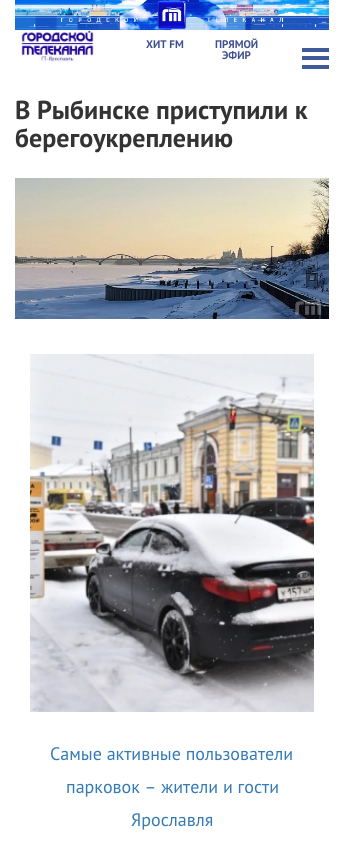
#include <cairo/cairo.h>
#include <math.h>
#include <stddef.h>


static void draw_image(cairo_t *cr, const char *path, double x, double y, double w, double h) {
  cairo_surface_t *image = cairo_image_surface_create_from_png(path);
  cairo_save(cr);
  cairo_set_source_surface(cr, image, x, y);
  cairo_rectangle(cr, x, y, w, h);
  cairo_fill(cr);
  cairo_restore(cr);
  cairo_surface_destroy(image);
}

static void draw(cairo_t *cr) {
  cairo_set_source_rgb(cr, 1, 1, 1);
  cairo_paint(cr);
  draw_image(cr, "images/1.png", 15, 0, 314, 30);
  draw_image(cr, "images/2.png", 21, 30, 73, 32);
  cairo_set_source_rgb(cr, 62 / 255.0, 92 / 255.0, 156 / 255.0);
  cairo_rectangle(cr, 302, 65, 27, 4);
  cairo_fill(cr);
  cairo_rectangle(cr, 302, 56, 27, 4);
  cairo_fill(cr);
  cairo_rectangle(cr, 302, 48, 27, 4);
  cairo_fill(cr);
  draw_image(cr, "images/3.png", 15, 178, 314, 141);
  draw_image(cr, "images/4.png", 30, 354, 284, 358);
  cairo_select_font_face(cr, "PT Sans", CAIRO_FONT_SLANT_NORMAL, CAIRO_FONT_WEIGHT_BOLD);
  cairo_set_font_size(cr, 11);
  cairo_set_source_rgb(cr, 62 / 255.0, 80 / 255.0, 144 / 255.0);
  cairo_move_to(cr, 146, 48);
  cairo_show_text(cr, "ХИТ FM");
  cairo_move_to(cr, 215, 48);
  cairo_show_text(cr, "ПРЯМОЙ");
  cairo_move_to(cr, 222, 59);
  cairo_show_text(cr, "ЭФИР");
  cairo_set_font_size(cr, 26);
  cairo_set_source_rgb(cr, 51 / 255.0, 51 / 255.0, 51 / 255.0);
  cairo_move_to(cr, 15, 119);
  cairo_show_text(cr, "В Рыбинске приступили к");
  cairo_move_to(cr, 15, 147);
  cairo_show_text(cr, "берегоукреплению");
  cairo_select_font_face(cr, "PT Sans", CAIRO_FONT_SLANT_NORMAL, CAIRO_FONT_WEIGHT_NORMAL);
  cairo_set_font_size(cr, 18);
  cairo_set_source_rgb(cr, 51 / 255.0, 122 / 255.0, 183 / 255.0);
  cairo_move_to(cr, 50, 760);
  cairo_show_text(cr, "Самые активные пользователи");
  cairo_move_to(cr, 66, 793);
  cairo_show_text(cr, "парковок – жители и гости");
  cairo_move_to(cr, 131, 826);
  cairo_show_text(cr, "Ярославля");
}

int main(void) {
  cairo_surface_t *surface = cairo_image_surface_create(CAIRO_FORMAT_RGB24, 344, 864);
  cairo_t *cr = cairo_create(surface);
  cairo_font_options_t *options = cairo_font_options_create();
  cairo_font_options_set_hint_metrics(options, CAIRO_HINT_METRICS_OFF);
  cairo_font_options_set_hint_style(options, CAIRO_HINT_STYLE_NONE);
  cairo_set_font_options(cr, options);
  cairo_set_miter_limit(cr, 4);
  draw(cr);
  cairo_surface_write_to_png(surface, "out.png");
  cairo_font_options_destroy(options);
  cairo_destroy(cr);
  cairo_surface_destroy(surface);
  return 0;
}
